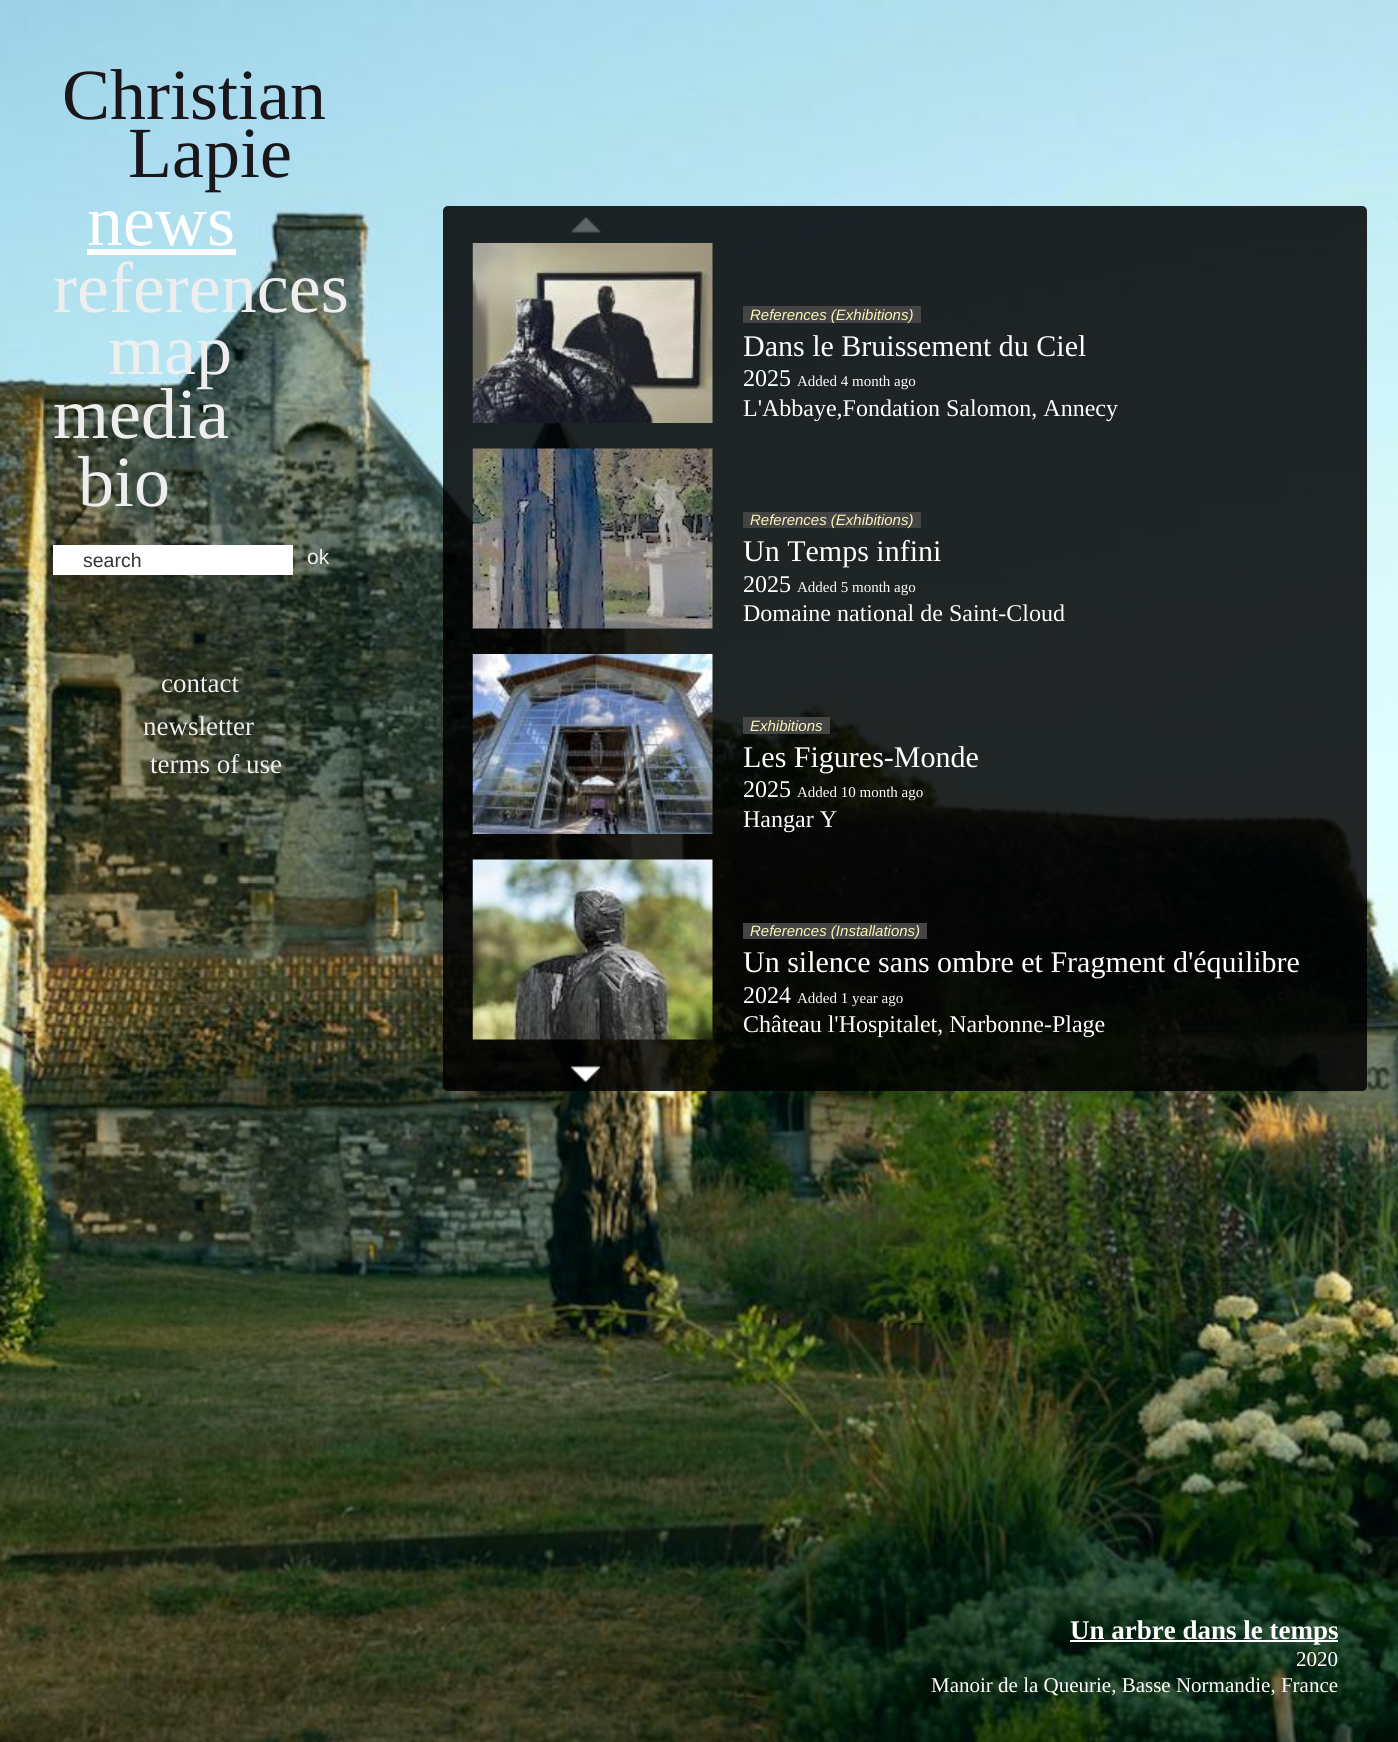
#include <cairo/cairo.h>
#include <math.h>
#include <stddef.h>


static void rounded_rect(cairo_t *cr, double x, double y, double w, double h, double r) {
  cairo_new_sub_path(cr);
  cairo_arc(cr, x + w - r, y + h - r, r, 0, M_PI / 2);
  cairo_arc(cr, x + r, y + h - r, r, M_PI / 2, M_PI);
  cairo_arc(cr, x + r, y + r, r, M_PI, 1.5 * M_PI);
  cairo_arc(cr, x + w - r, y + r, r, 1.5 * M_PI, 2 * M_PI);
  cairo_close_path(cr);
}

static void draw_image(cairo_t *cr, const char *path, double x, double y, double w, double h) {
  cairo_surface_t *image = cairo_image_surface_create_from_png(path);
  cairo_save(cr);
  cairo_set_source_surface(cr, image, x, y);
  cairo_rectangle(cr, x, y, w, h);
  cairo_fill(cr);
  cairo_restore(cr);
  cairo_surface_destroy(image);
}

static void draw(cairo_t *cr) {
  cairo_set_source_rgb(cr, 1, 1, 1);
  cairo_paint(cr);
  draw_image(cr, "images/1.png", 0, 0, 1398, 1742);
  cairo_set_source_rgb(cr, 1, 1, 1);
  cairo_rectangle(cr, 87, 249, 149, 6);
  cairo_fill(cr);
  cairo_rectangle(cr, 53, 545, 240, 30);
  cairo_fill(cr);
  cairo_set_source_rgba(cr, 0, 0, 0, 0.85);
  rounded_rect(cr, 443, 206, 924, 885, 5);
  cairo_fill(cr);
  draw_image(cr, "images/2.png", 571, 217, 31, 16);
  draw_image(cr, "images/3.png", 472, 243, 241, 180);
  cairo_set_source_rgb(cr, 68 / 255.0, 68 / 255.0, 68 / 255.0);
  cairo_rectangle(cr, 743, 306, 178, 17);
  cairo_fill(cr);
  draw_image(cr, "images/4.png", 472, 448, 241, 181);
  cairo_rectangle(cr, 743, 512, 178, 16);
  cairo_fill(cr);
  draw_image(cr, "images/5.png", 472, 654, 241, 180);
  cairo_rectangle(cr, 743, 717, 87, 17);
  cairo_fill(cr);
  draw_image(cr, "images/6.png", 472, 859, 241, 181);
  cairo_rectangle(cr, 743, 923, 184, 16);
  cairo_fill(cr);
  draw_image(cr, "images/7.png", 570, 1066, 31, 17);
  cairo_set_source_rgb(cr, 1, 1, 1);
  cairo_rectangle(cr, 1070, 1640, 268, 2);
  cairo_fill(cr);
  cairo_select_font_face(cr, "Liberation Serif", CAIRO_FONT_SLANT_NORMAL, CAIRO_FONT_WEIGHT_NORMAL);
  cairo_set_font_size(cr, 72);
  cairo_set_source_rgb(cr, 26 / 255.0, 23 / 255.0, 27 / 255.0);
  cairo_move_to(cr, 62, 119);
  cairo_show_text(cr, "Christian");
  cairo_move_to(cr, 128, 177);
  cairo_show_text(cr, "Lapie");
  cairo_set_source_rgb(cr, 1, 1, 1);
  cairo_move_to(cr, 87, 245);
  cairo_show_text(cr, "news");
  cairo_set_source_rgb(cr, 238 / 255.0, 238 / 255.0, 238 / 255.0);
  cairo_move_to(cr, 53, 312);
  cairo_show_text(cr, "references");
  cairo_move_to(cr, 108, 374);
  cairo_show_text(cr, "map");
  cairo_move_to(cr, 53, 438);
  cairo_show_text(cr, "media");
  cairo_move_to(cr, 78, 506);
  cairo_show_text(cr, "bio");
  cairo_select_font_face(cr, "Liberation Sans", CAIRO_FONT_SLANT_NORMAL, CAIRO_FONT_WEIGHT_NORMAL);
  cairo_set_font_size(cr, 19.5);
  cairo_set_source_rgb(cr, 51 / 255.0, 51 / 255.0, 51 / 255.0);
  cairo_move_to(cr, 83, 567);
  cairo_show_text(cr, "search");
  cairo_set_font_size(cr, 21);
  cairo_set_source_rgb(cr, 238 / 255.0, 238 / 255.0, 238 / 255.0);
  cairo_move_to(cr, 307, 564);
  cairo_show_text(cr, "ok");
  cairo_select_font_face(cr, "Liberation Serif", CAIRO_FONT_SLANT_NORMAL, CAIRO_FONT_WEIGHT_NORMAL);
  cairo_set_font_size(cr, 27);
  cairo_move_to(cr, 161, 692);
  cairo_show_text(cr, "contact");
  cairo_move_to(cr, 143, 735);
  cairo_show_text(cr, "newsletter");
  cairo_move_to(cr, 150, 773);
  cairo_show_text(cr, "terms of use");
  cairo_select_font_face(cr, "Liberation Sans", CAIRO_FONT_SLANT_ITALIC, CAIRO_FONT_WEIGHT_NORMAL);
  cairo_set_font_size(cr, 15);
  cairo_set_source_rgb(cr, 250 / 255.0, 245 / 255.0, 185 / 255.0);
  cairo_move_to(cr, 750, 320);
  cairo_show_text(cr, "References (Exhibitions)");
  cairo_select_font_face(cr, "Liberation Serif", CAIRO_FONT_SLANT_NORMAL, CAIRO_FONT_WEIGHT_NORMAL);
  cairo_set_font_size(cr, 30);
  cairo_set_source_rgb(cr, 1, 1, 1);
  cairo_move_to(cr, 743, 356);
  cairo_show_text(cr, "Dans le Bruissement du Ciel");
  cairo_set_font_size(cr, 24);
  cairo_move_to(cr, 743, 386);
  cairo_show_text(cr, "2025");
  cairo_set_font_size(cr, 15);
  cairo_move_to(cr, 797, 386);
  cairo_show_text(cr, "Added 4 month ago");
  cairo_set_font_size(cr, 24);
  cairo_move_to(cr, 743, 416);
  cairo_show_text(cr, "L'Abbaye,Fondation Salomon, Annecy");
  cairo_select_font_face(cr, "Liberation Sans", CAIRO_FONT_SLANT_ITALIC, CAIRO_FONT_WEIGHT_NORMAL);
  cairo_set_font_size(cr, 15);
  cairo_set_source_rgb(cr, 250 / 255.0, 245 / 255.0, 185 / 255.0);
  cairo_move_to(cr, 750, 525);
  cairo_show_text(cr, "References (Exhibitions)");
  cairo_select_font_face(cr, "Liberation Serif", CAIRO_FONT_SLANT_NORMAL, CAIRO_FONT_WEIGHT_NORMAL);
  cairo_set_font_size(cr, 30);
  cairo_set_source_rgb(cr, 1, 1, 1);
  cairo_move_to(cr, 743, 561);
  cairo_show_text(cr, "Un Temps infini");
  cairo_set_font_size(cr, 24);
  cairo_move_to(cr, 743, 592);
  cairo_show_text(cr, "2025");
  cairo_set_font_size(cr, 15);
  cairo_move_to(cr, 797, 592);
  cairo_show_text(cr, "Added 5 month ago");
  cairo_set_font_size(cr, 24);
  cairo_move_to(cr, 743, 621);
  cairo_show_text(cr, "Domaine national de Saint-Cloud");
  cairo_select_font_face(cr, "Liberation Sans", CAIRO_FONT_SLANT_ITALIC, CAIRO_FONT_WEIGHT_NORMAL);
  cairo_set_font_size(cr, 15);
  cairo_set_source_rgb(cr, 250 / 255.0, 245 / 255.0, 185 / 255.0);
  cairo_move_to(cr, 750, 731);
  cairo_show_text(cr, "Exhibitions");
  cairo_select_font_face(cr, "Liberation Serif", CAIRO_FONT_SLANT_NORMAL, CAIRO_FONT_WEIGHT_NORMAL);
  cairo_set_font_size(cr, 30);
  cairo_set_source_rgb(cr, 1, 1, 1);
  cairo_move_to(cr, 743, 767);
  cairo_show_text(cr, "Les Figures-Monde");
  cairo_set_font_size(cr, 24);
  cairo_move_to(cr, 743, 797);
  cairo_show_text(cr, "2025");
  cairo_set_font_size(cr, 15);
  cairo_move_to(cr, 797, 797);
  cairo_show_text(cr, "Added 10 month ago");
  cairo_set_font_size(cr, 24);
  cairo_move_to(cr, 743, 827);
  cairo_show_text(cr, "Hangar Y");
  cairo_select_font_face(cr, "Liberation Sans", CAIRO_FONT_SLANT_ITALIC, CAIRO_FONT_WEIGHT_NORMAL);
  cairo_set_font_size(cr, 15);
  cairo_set_source_rgb(cr, 250 / 255.0, 245 / 255.0, 185 / 255.0);
  cairo_move_to(cr, 750, 936);
  cairo_show_text(cr, "References (Installations)");
  cairo_select_font_face(cr, "Liberation Serif", CAIRO_FONT_SLANT_NORMAL, CAIRO_FONT_WEIGHT_NORMAL);
  cairo_set_font_size(cr, 30);
  cairo_set_source_rgb(cr, 1, 1, 1);
  cairo_move_to(cr, 743, 972);
  cairo_show_text(cr, "Un silence sans ombre et Fragment d'équilibre");
  cairo_set_font_size(cr, 24);
  cairo_move_to(cr, 743, 1003);
  cairo_show_text(cr, "2024");
  cairo_set_font_size(cr, 15);
  cairo_move_to(cr, 797, 1003);
  cairo_show_text(cr, "Added 1 year ago");
  cairo_set_font_size(cr, 24);
  cairo_move_to(cr, 743, 1032);
  cairo_show_text(cr, "Château l'Hospitalet, Narbonne-Plage");
  cairo_select_font_face(cr, "Liberation Serif", CAIRO_FONT_SLANT_NORMAL, CAIRO_FONT_WEIGHT_BOLD);
  cairo_set_font_size(cr, 27);
  cairo_move_to(cr, 1070, 1639);
  cairo_show_text(cr, "Un arbre dans le temps");
  cairo_select_font_face(cr, "Liberation Serif", CAIRO_FONT_SLANT_NORMAL, CAIRO_FONT_WEIGHT_NORMAL);
  cairo_set_font_size(cr, 21);
  cairo_move_to(cr, 1296, 1666);
  cairo_show_text(cr, "2020");
  cairo_move_to(cr, 931, 1692);
  cairo_show_text(cr, "Manoir de la Queurie, Basse Normandie, France");
}

int main(void) {
  cairo_surface_t *surface = cairo_image_surface_create(CAIRO_FORMAT_RGB24, 1398, 1742);
  cairo_t *cr = cairo_create(surface);
  cairo_font_options_t *options = cairo_font_options_create();
  cairo_font_options_set_hint_metrics(options, CAIRO_HINT_METRICS_OFF);
  cairo_font_options_set_hint_style(options, CAIRO_HINT_STYLE_NONE);
  cairo_set_font_options(cr, options);
  cairo_set_miter_limit(cr, 4);
  draw(cr);
  cairo_surface_write_to_png(surface, "out.png");
  cairo_font_options_destroy(options);
  cairo_destroy(cr);
  cairo_surface_destroy(surface);
  return 0;
}
